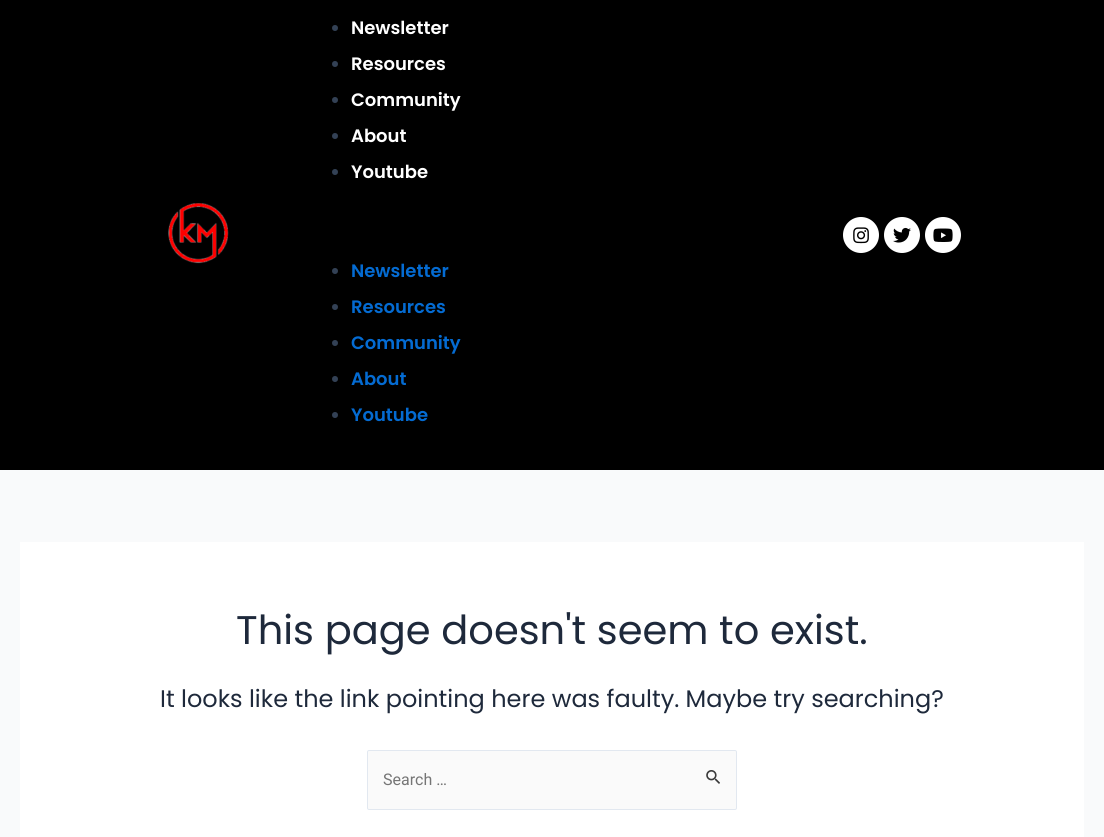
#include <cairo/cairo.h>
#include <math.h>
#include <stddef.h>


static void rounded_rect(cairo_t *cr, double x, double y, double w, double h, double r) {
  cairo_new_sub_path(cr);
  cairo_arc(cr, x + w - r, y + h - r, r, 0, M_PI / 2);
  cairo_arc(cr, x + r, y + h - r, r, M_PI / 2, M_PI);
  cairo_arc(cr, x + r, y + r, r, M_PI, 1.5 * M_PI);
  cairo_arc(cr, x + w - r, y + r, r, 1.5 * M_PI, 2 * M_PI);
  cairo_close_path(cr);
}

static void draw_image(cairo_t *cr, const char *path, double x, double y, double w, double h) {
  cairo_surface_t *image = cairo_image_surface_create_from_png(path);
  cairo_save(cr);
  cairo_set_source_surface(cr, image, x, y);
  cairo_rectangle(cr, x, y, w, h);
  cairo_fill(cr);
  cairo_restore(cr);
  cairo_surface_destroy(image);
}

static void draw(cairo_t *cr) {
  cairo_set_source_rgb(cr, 249 / 255.0, 250 / 255.0, 251 / 255.0);
  cairo_paint(cr);
  cairo_set_source_rgb(cr, 0, 0, 0);
  cairo_rectangle(cr, 0, 0, 1104, 470);
  cairo_fill(cr);
  draw_image(cr, "images/1.png", 168, 203, 61, 61);
  cairo_set_source_rgb(cr, 51 / 255.0, 65 / 255.0, 85 / 255.0);
  cairo_arc(cr, 335, 28, 3, 0, 2 * M_PI);
  cairo_fill(cr);
  cairo_arc(cr, 335, 64, 3, 0, 2 * M_PI);
  cairo_fill(cr);
  cairo_arc(cr, 335, 100, 3, 0, 2 * M_PI);
  cairo_fill(cr);
  cairo_arc(cr, 335, 136, 3, 0, 2 * M_PI);
  cairo_fill(cr);
  cairo_arc(cr, 335, 172, 3, 0, 2 * M_PI);
  cairo_fill(cr);
  cairo_arc(cr, 335, 271, 3, 0, 2 * M_PI);
  cairo_fill(cr);
  cairo_arc(cr, 335, 307, 3, 0, 2 * M_PI);
  cairo_fill(cr);
  cairo_arc(cr, 335, 343, 3, 0, 2 * M_PI);
  cairo_fill(cr);
  cairo_arc(cr, 335, 379, 3, 0, 2 * M_PI);
  cairo_fill(cr);
  cairo_arc(cr, 335, 415, 3, 0, 2 * M_PI);
  cairo_fill(cr);
  cairo_set_source_rgb(cr, 1, 1, 1);
  cairo_arc(cr, 861, 235, 18, 0, 2 * M_PI);
  cairo_fill(cr);
  draw_image(cr, "images/2.png", 853, 227, 16, 17);
  cairo_arc(cr, 902, 235, 18, 0, 2 * M_PI);
  cairo_fill(cr);
  draw_image(cr, "images/3.png", 893, 227, 18, 16);
  cairo_arc(cr, 943, 235, 18, 0, 2 * M_PI);
  cairo_fill(cr);
  draw_image(cr, "images/4.png", 933, 228, 20, 14);
  cairo_rectangle(cr, 20, 542, 1064, 295);
  cairo_fill(cr);
  cairo_set_source_rgb(cr, 250 / 255.0, 250 / 255.0, 250 / 255.0);
  rounded_rect(cr, 367.5, 750.5, 369, 59, 1.5);
  cairo_fill_preserve(cr);
  cairo_set_source_rgb(cr, 226 / 255.0, 232 / 255.0, 240 / 255.0);
  cairo_set_line_width(cr, 1);
  cairo_stroke(cr);
  draw_image(cr, "images/5.png", 706, 770, 14, 14);
  cairo_select_font_face(cr, "Poppins SemiBold", CAIRO_FONT_SLANT_NORMAL, CAIRO_FONT_WEIGHT_NORMAL);
  cairo_set_font_size(cr, 18);
  cairo_set_source_rgb(cr, 1, 1, 1);
  cairo_move_to(cr, 351, 34);
  cairo_show_text(cr, "Newsletter");
  cairo_move_to(cr, 351, 70);
  cairo_show_text(cr, "Resources");
  cairo_move_to(cr, 351, 106);
  cairo_show_text(cr, "Community");
  cairo_move_to(cr, 351, 142);
  cairo_show_text(cr, "About");
  cairo_move_to(cr, 351, 178);
  cairo_show_text(cr, "Youtube");
  cairo_set_source_rgb(cr, 4 / 255.0, 107 / 255.0, 210 / 255.0);
  cairo_move_to(cr, 351, 277);
  cairo_show_text(cr, "Newsletter");
  cairo_move_to(cr, 351, 313);
  cairo_show_text(cr, "Resources");
  cairo_move_to(cr, 351, 349);
  cairo_show_text(cr, "Community");
  cairo_move_to(cr, 351, 385);
  cairo_show_text(cr, "About");
  cairo_move_to(cr, 351, 421);
  cairo_show_text(cr, "Youtube");
  cairo_select_font_face(cr, "Poppins", CAIRO_FONT_SLANT_NORMAL, CAIRO_FONT_WEIGHT_NORMAL);
  cairo_set_font_size(cr, 40);
  cairo_set_source_rgb(cr, 30 / 255.0, 41 / 255.0, 59 / 255.0);
  cairo_move_to(cr, 236, 644);
  cairo_show_text(cr, "This page doesn't seem to exist.");
  cairo_set_font_size(cr, 24);
  cairo_move_to(cr, 160, 707);
  cairo_show_text(cr, "It looks like the link pointing here was faulty. Maybe try searching?");
  cairo_select_font_face(cr, "Roboto", CAIRO_FONT_SLANT_NORMAL, CAIRO_FONT_WEIGHT_NORMAL);
  cairo_set_font_size(cr, 16);
  cairo_set_source_rgb(cr, 117 / 255.0, 117 / 255.0, 117 / 255.0);
  cairo_move_to(cr, 383, 785);
  cairo_show_text(cr, "Search …");
}

int main(void) {
  cairo_surface_t *surface = cairo_image_surface_create(CAIRO_FORMAT_RGB24, 1104, 837);
  cairo_t *cr = cairo_create(surface);
  cairo_font_options_t *options = cairo_font_options_create();
  cairo_font_options_set_hint_metrics(options, CAIRO_HINT_METRICS_OFF);
  cairo_font_options_set_hint_style(options, CAIRO_HINT_STYLE_NONE);
  cairo_set_font_options(cr, options);
  cairo_set_miter_limit(cr, 4);
  draw(cr);
  cairo_surface_write_to_png(surface, "out.png");
  cairo_font_options_destroy(options);
  cairo_destroy(cr);
  cairo_surface_destroy(surface);
  return 0;
}
